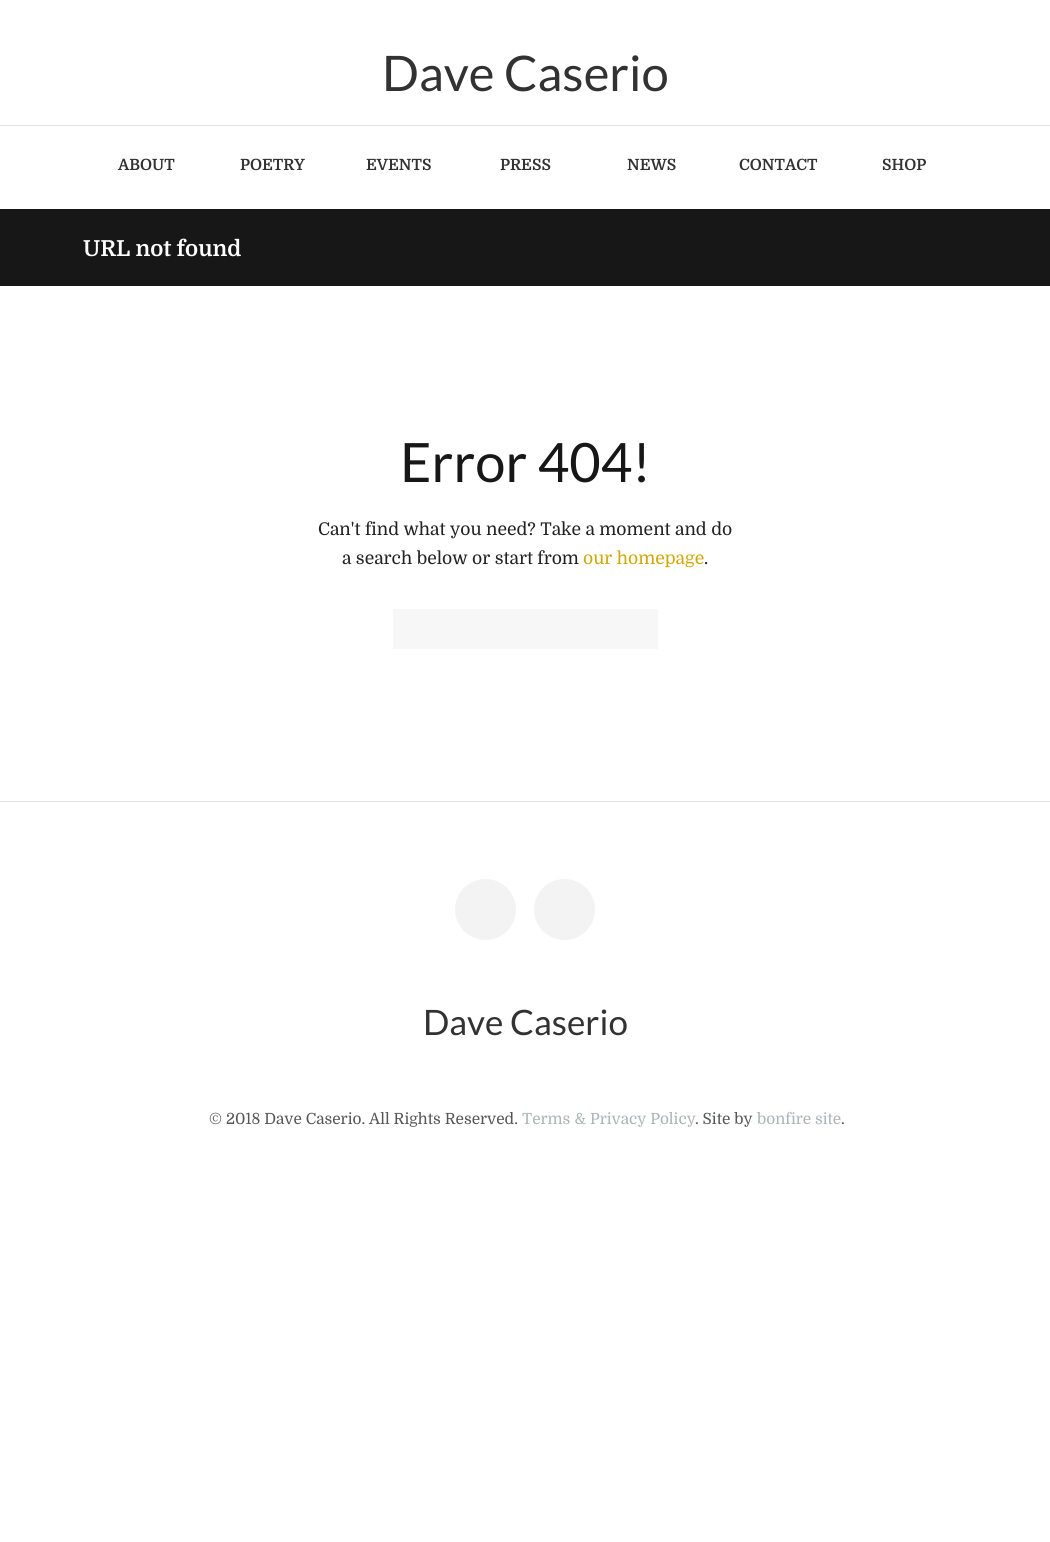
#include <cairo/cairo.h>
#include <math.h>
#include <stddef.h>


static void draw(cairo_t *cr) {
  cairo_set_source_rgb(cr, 1, 1, 1);
  cairo_paint(cr);
  cairo_set_source_rgb(cr, 227 / 255.0, 227 / 255.0, 227 / 255.0);
  cairo_rectangle(cr, 0, 125, 1050, 1);
  cairo_fill(cr);
  cairo_set_source_rgb(cr, 23 / 255.0, 23 / 255.0, 23 / 255.0);
  cairo_rectangle(cr, 0, 209, 1050, 77);
  cairo_fill(cr);
  cairo_set_source_rgb(cr, 247 / 255.0, 247 / 255.0, 247 / 255.0);
  cairo_rectangle(cr, 393, 609, 265, 40);
  cairo_fill(cr);
  cairo_set_source_rgb(cr, 227 / 255.0, 227 / 255.0, 227 / 255.0);
  cairo_rectangle(cr, 0, 801, 1050, 1);
  cairo_fill(cr);
  cairo_set_source_rgb(cr, 243 / 255.0, 243 / 255.0, 243 / 255.0);
  cairo_arc(cr, 485.5, 909.5, 30.5, 0, 2 * M_PI);
  cairo_fill(cr);
  cairo_arc(cr, 564.5, 909.5, 30.5, 0, 2 * M_PI);
  cairo_fill(cr);
  cairo_select_font_face(cr, "Lato", CAIRO_FONT_SLANT_NORMAL, CAIRO_FONT_WEIGHT_NORMAL);
  cairo_set_font_size(cr, 49);
  cairo_set_source_rgb(cr, 50 / 255.0, 50 / 255.0, 50 / 255.0);
  cairo_move_to(cr, 382, 91);
  cairo_show_text(cr, "Dave Caserio");
  cairo_select_font_face(cr, "Domine", CAIRO_FONT_SLANT_NORMAL, CAIRO_FONT_WEIGHT_BOLD);
  cairo_set_font_size(cr, 15.5);
  cairo_move_to(cr, 118, 170);
  cairo_show_text(cr, "ABOUT");
  cairo_move_to(cr, 240, 170);
  cairo_show_text(cr, "POETRY");
  cairo_move_to(cr, 366, 170);
  cairo_show_text(cr, "EVENTS");
  cairo_move_to(cr, 500, 170);
  cairo_show_text(cr, "PRESS");
  cairo_move_to(cr, 627, 170);
  cairo_show_text(cr, "NEWS");
  cairo_move_to(cr, 739, 170);
  cairo_show_text(cr, "CONTACT");
  cairo_move_to(cr, 882, 170);
  cairo_show_text(cr, "SHOP");
  cairo_set_font_size(cr, 22);
  cairo_set_source_rgb(cr, 1, 1, 1);
  cairo_move_to(cr, 83, 256);
  cairo_show_text(cr, "URL not found");
  cairo_select_font_face(cr, "Lato", CAIRO_FONT_SLANT_NORMAL, CAIRO_FONT_WEIGHT_NORMAL);
  cairo_set_font_size(cr, 54.25);
  cairo_set_source_rgb(cr, 23 / 255.0, 23 / 255.0, 23 / 255.0);
  cairo_move_to(cr, 400, 482);
  cairo_show_text(cr, "Error 404!");
  cairo_select_font_face(cr, "Domine", CAIRO_FONT_SLANT_NORMAL, CAIRO_FONT_WEIGHT_NORMAL);
  cairo_set_font_size(cr, 17.5);
  cairo_set_source_rgb(cr, 34 / 255.0, 34 / 255.0, 34 / 255.0);
  cairo_move_to(cr, 318, 535);
  cairo_show_text(cr, "Can't find what you need? Take a moment and do");
  cairo_move_to(cr, 342, 564);
  cairo_show_text(cr, "a search below or start from");
  cairo_set_source_rgb(cr, 209 / 255.0, 168 / 255.0, 5 / 255.0);
  cairo_move_to(cr, 583, 564);
  cairo_show_text(cr, "our homepage");
  cairo_set_source_rgb(cr, 34 / 255.0, 34 / 255.0, 34 / 255.0);
  cairo_move_to(cr, 704, 564);
  cairo_show_text(cr, ".");
  cairo_select_font_face(cr, "Lato", CAIRO_FONT_SLANT_NORMAL, CAIRO_FONT_WEIGHT_NORMAL);
  cairo_set_font_size(cr, 35);
  cairo_set_source_rgb(cr, 50 / 255.0, 50 / 255.0, 50 / 255.0);
  cairo_move_to(cr, 423, 1035);
  cairo_show_text(cr, "Dave Caserio");
  cairo_select_font_face(cr, "Domine", CAIRO_FONT_SLANT_NORMAL, CAIRO_FONT_WEIGHT_NORMAL);
  cairo_set_font_size(cr, 15.4);
  cairo_set_source_rgb(cr, 84 / 255.0, 86 / 255.0, 87 / 255.0);
  cairo_move_to(cr, 209, 1124);
  cairo_show_text(cr, "© 2018 Dave Caserio. All Rights Reserved.");
  cairo_set_source_rgb(cr, 172 / 255.0, 180 / 255.0, 182 / 255.0);
  cairo_move_to(cr, 522, 1124);
  cairo_show_text(cr, "Terms & Privacy Policy");
  cairo_set_source_rgb(cr, 84 / 255.0, 86 / 255.0, 87 / 255.0);
  cairo_move_to(cr, 695, 1124);
  cairo_show_text(cr, ". Site by");
  cairo_set_source_rgb(cr, 172 / 255.0, 180 / 255.0, 182 / 255.0);
  cairo_move_to(cr, 757, 1124);
  cairo_show_text(cr, "bonfire site");
  cairo_set_source_rgb(cr, 84 / 255.0, 86 / 255.0, 87 / 255.0);
  cairo_move_to(cr, 841, 1124);
  cairo_show_text(cr, ".");
}

int main(void) {
  cairo_surface_t *surface = cairo_image_surface_create(CAIRO_FORMAT_RGB24, 1050, 1542);
  cairo_t *cr = cairo_create(surface);
  cairo_font_options_t *options = cairo_font_options_create();
  cairo_font_options_set_hint_metrics(options, CAIRO_HINT_METRICS_OFF);
  cairo_font_options_set_hint_style(options, CAIRO_HINT_STYLE_NONE);
  cairo_set_font_options(cr, options);
  cairo_set_miter_limit(cr, 4);
  draw(cr);
  cairo_surface_write_to_png(surface, "out.png");
  cairo_font_options_destroy(options);
  cairo_destroy(cr);
  cairo_surface_destroy(surface);
  return 0;
}
